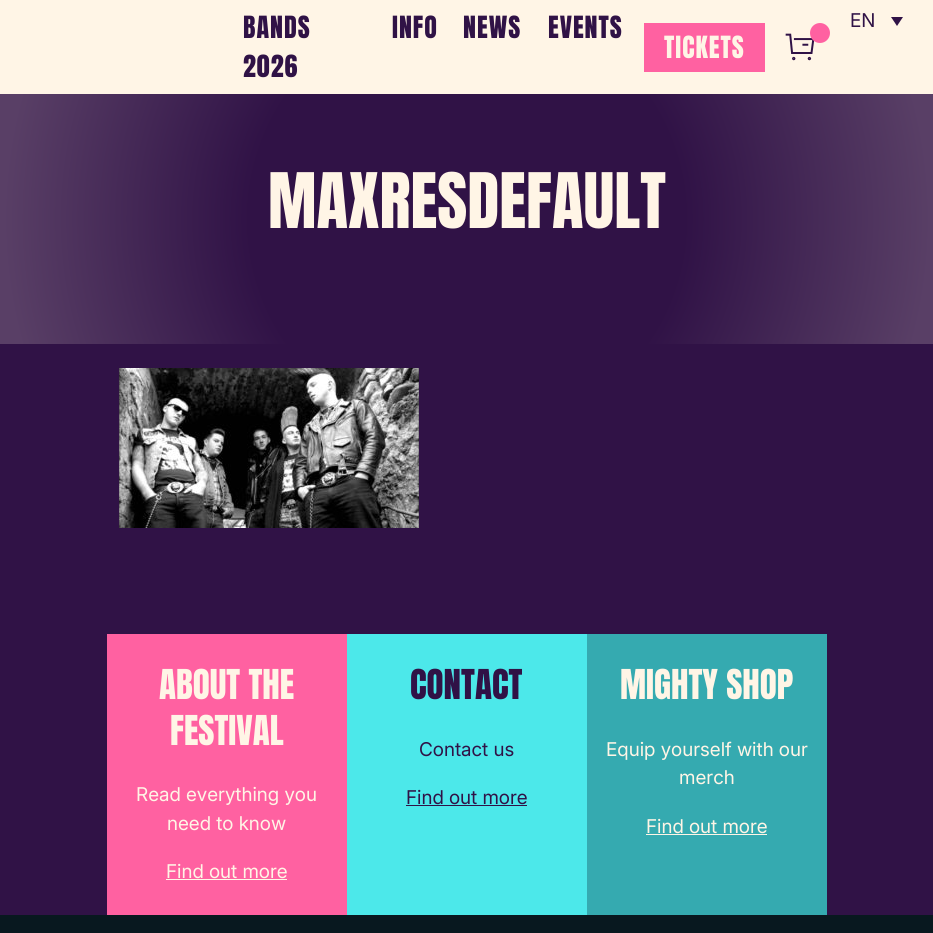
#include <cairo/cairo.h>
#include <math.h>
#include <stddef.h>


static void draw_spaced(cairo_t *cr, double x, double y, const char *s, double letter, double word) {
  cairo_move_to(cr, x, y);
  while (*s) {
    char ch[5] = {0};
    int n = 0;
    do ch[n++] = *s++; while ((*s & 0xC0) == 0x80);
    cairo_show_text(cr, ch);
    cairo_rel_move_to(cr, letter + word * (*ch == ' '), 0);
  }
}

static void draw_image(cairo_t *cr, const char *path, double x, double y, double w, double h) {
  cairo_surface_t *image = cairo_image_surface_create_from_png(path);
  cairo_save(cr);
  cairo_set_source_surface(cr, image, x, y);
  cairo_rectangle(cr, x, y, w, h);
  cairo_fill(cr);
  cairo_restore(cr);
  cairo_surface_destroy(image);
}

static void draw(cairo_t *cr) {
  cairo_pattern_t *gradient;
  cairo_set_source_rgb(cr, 48 / 255.0, 18 / 255.0, 70 / 255.0);
  cairo_paint(cr);
  cairo_set_source_rgb(cr, 1, 245 / 255.0, 230 / 255.0);
  cairo_rectangle(cr, 0, 0, 933, 94);
  cairo_fill(cr);
  cairo_set_source_rgb(cr, 1, 97 / 255.0, 161 / 255.0);
  cairo_rectangle(cr, 644, 23, 121, 49);
  cairo_fill(cr);
  draw_image(cr, "images/1.png", 785, 33, 30, 28);
  cairo_arc(cr, 820, 33, 10, 0, 2 * M_PI);
  cairo_fill(cr);
  cairo_set_source_rgb(cr, 48 / 255.0, 18 / 255.0, 70 / 255.0);
  cairo_new_path(cr);
  cairo_move_to(cr, 891, 17);
  cairo_line_to(cr, 903, 17);
  cairo_line_to(cr, 897, 26);
  cairo_close_path(cr);
  cairo_fill(cr);
  gradient = cairo_pattern_create_radial(467, 219, 0, 467, 219, 483);
  cairo_pattern_add_color_stop_rgba(gradient, 0.45, 48 / 255.0, 18 / 255.0, 70 / 255.0, 1);
  cairo_pattern_add_color_stop_rgba(gradient, 0.96, 89 / 255.0, 63 / 255.0, 102 / 255.0, 1);
  cairo_set_source(cr, gradient);
  cairo_pattern_destroy(gradient);
  cairo_rectangle(cr, 0, 94, 933, 250);
  cairo_fill(cr);
  draw_image(cr, "images/2.png", 119, 368, 300, 160);
  cairo_set_source_rgb(cr, 1, 97 / 255.0, 161 / 255.0);
  cairo_rectangle(cr, 107, 634, 240, 281);
  cairo_fill(cr);
  cairo_set_source_rgb(cr, 1, 245 / 255.0, 230 / 255.0);
  cairo_rectangle(cr, 166, 879, 121, 1);
  cairo_fill(cr);
  cairo_set_source_rgb(cr, 76 / 255.0, 232 / 255.0, 234 / 255.0);
  cairo_rectangle(cr, 347, 634, 240, 281);
  cairo_fill(cr);
  cairo_set_source_rgb(cr, 48 / 255.0, 18 / 255.0, 70 / 255.0);
  cairo_rectangle(cr, 406, 805, 121, 1);
  cairo_fill(cr);
  cairo_set_source_rgb(cr, 53 / 255.0, 170 / 255.0, 176 / 255.0);
  cairo_rectangle(cr, 587, 634, 240, 281);
  cairo_fill(cr);
  cairo_set_source_rgb(cr, 1, 245 / 255.0, 230 / 255.0);
  cairo_rectangle(cr, 646, 834, 121, 1);
  cairo_fill(cr);
  cairo_set_source_rgb(cr, 8 / 255.0, 24 / 255.0, 31 / 255.0);
  cairo_rectangle(cr, 0, 915, 933, 18);
  cairo_fill(cr);
  cairo_select_font_face(cr, "Anton", CAIRO_FONT_SLANT_NORMAL, CAIRO_FONT_WEIGHT_NORMAL);
  cairo_set_font_size(cr, 26);
  cairo_set_source_rgb(cr, 48 / 255.0, 18 / 255.0, 70 / 255.0);
  draw_spaced(cr, 243, 38, "BANDS", 1, 0);
  draw_spaced(cr, 243, 77, "2026", 1, 0);
  draw_spaced(cr, 392, 38, "INFO", 1, 0);
  draw_spaced(cr, 463, 38, "NEWS", 1, 0);
  draw_spaced(cr, 548, 38, "EVENTS", 1, 0);
  cairo_set_source_rgb(cr, 1, 245 / 255.0, 230 / 255.0);
  draw_spaced(cr, 664, 58, "TICKETS", 1, 0);
  cairo_select_font_face(cr, "Inter", CAIRO_FONT_SLANT_NORMAL, CAIRO_FONT_WEIGHT_NORMAL);
  cairo_set_font_size(cr, 19);
  cairo_set_source_rgb(cr, 48 / 255.0, 18 / 255.0, 70 / 255.0);
  cairo_move_to(cr, 850, 27);
  cairo_show_text(cr, "EN");
  cairo_select_font_face(cr, "Anton", CAIRO_FONT_SLANT_NORMAL, CAIRO_FONT_WEIGHT_NORMAL);
  cairo_set_font_size(cr, 65);
  cairo_set_source_rgb(cr, 1, 245 / 255.0, 230 / 255.0);
  cairo_move_to(cr, 268, 228);
  cairo_show_text(cr, "MAXRESDEFAULT");
  cairo_set_font_size(cr, 35);
  cairo_move_to(cr, 159, 699);
  cairo_show_text(cr, "ABOUT THE");
  cairo_move_to(cr, 170, 745);
  cairo_show_text(cr, "FESTIVAL");
  cairo_select_font_face(cr, "Inter", CAIRO_FONT_SLANT_NORMAL, CAIRO_FONT_WEIGHT_NORMAL);
  cairo_set_font_size(cr, 19);
  cairo_move_to(cr, 136, 801);
  cairo_show_text(cr, "Read everything you");
  cairo_move_to(cr, 167, 830);
  cairo_show_text(cr, "need to know");
  cairo_move_to(cr, 166, 878);
  cairo_show_text(cr, "Find out more");
  cairo_select_font_face(cr, "Anton", CAIRO_FONT_SLANT_NORMAL, CAIRO_FONT_WEIGHT_NORMAL);
  cairo_set_font_size(cr, 35);
  cairo_set_source_rgb(cr, 48 / 255.0, 18 / 255.0, 70 / 255.0);
  cairo_move_to(cr, 410, 699);
  cairo_show_text(cr, "CONTACT");
  cairo_select_font_face(cr, "Inter", CAIRO_FONT_SLANT_NORMAL, CAIRO_FONT_WEIGHT_NORMAL);
  cairo_set_font_size(cr, 19);
  cairo_move_to(cr, 419, 756);
  cairo_show_text(cr, "Contact us");
  cairo_move_to(cr, 406, 804);
  cairo_show_text(cr, "Find out more");
  cairo_select_font_face(cr, "Anton", CAIRO_FONT_SLANT_NORMAL, CAIRO_FONT_WEIGHT_NORMAL);
  cairo_set_font_size(cr, 35);
  cairo_set_source_rgb(cr, 1, 245 / 255.0, 230 / 255.0);
  cairo_move_to(cr, 620, 699);
  cairo_show_text(cr, "MIGHTY SHOP");
  cairo_select_font_face(cr, "Inter", CAIRO_FONT_SLANT_NORMAL, CAIRO_FONT_WEIGHT_NORMAL);
  cairo_set_font_size(cr, 19);
  cairo_move_to(cr, 606, 756);
  cairo_show_text(cr, "Equip yourself with our");
  cairo_move_to(cr, 679, 784);
  cairo_show_text(cr, "merch");
  cairo_move_to(cr, 646, 833);
  cairo_show_text(cr, "Find out more");
}

int main(void) {
  cairo_surface_t *surface = cairo_image_surface_create(CAIRO_FORMAT_RGB24, 933, 933);
  cairo_t *cr = cairo_create(surface);
  cairo_font_options_t *options = cairo_font_options_create();
  cairo_font_options_set_hint_metrics(options, CAIRO_HINT_METRICS_OFF);
  cairo_font_options_set_hint_style(options, CAIRO_HINT_STYLE_NONE);
  cairo_set_font_options(cr, options);
  cairo_set_miter_limit(cr, 4);
  draw(cr);
  cairo_surface_write_to_png(surface, "out.png");
  cairo_font_options_destroy(options);
  cairo_destroy(cr);
  cairo_surface_destroy(surface);
  return 0;
}
